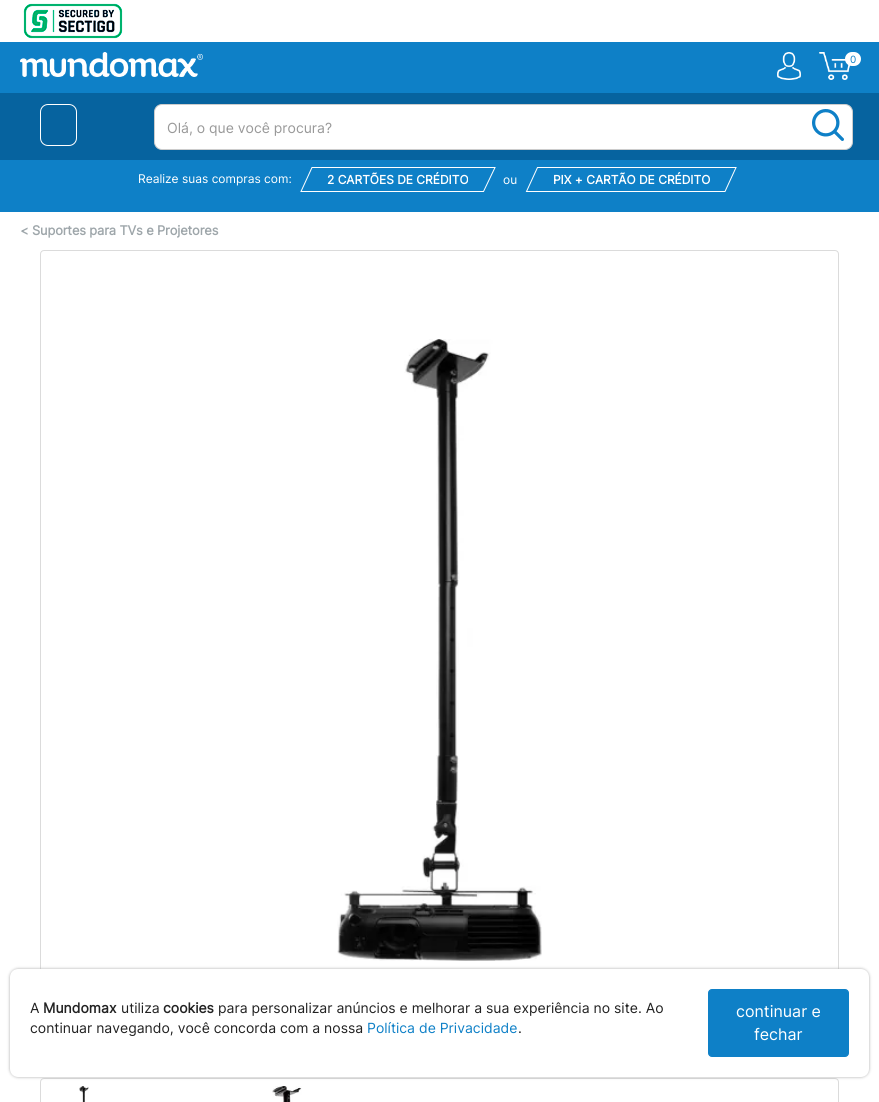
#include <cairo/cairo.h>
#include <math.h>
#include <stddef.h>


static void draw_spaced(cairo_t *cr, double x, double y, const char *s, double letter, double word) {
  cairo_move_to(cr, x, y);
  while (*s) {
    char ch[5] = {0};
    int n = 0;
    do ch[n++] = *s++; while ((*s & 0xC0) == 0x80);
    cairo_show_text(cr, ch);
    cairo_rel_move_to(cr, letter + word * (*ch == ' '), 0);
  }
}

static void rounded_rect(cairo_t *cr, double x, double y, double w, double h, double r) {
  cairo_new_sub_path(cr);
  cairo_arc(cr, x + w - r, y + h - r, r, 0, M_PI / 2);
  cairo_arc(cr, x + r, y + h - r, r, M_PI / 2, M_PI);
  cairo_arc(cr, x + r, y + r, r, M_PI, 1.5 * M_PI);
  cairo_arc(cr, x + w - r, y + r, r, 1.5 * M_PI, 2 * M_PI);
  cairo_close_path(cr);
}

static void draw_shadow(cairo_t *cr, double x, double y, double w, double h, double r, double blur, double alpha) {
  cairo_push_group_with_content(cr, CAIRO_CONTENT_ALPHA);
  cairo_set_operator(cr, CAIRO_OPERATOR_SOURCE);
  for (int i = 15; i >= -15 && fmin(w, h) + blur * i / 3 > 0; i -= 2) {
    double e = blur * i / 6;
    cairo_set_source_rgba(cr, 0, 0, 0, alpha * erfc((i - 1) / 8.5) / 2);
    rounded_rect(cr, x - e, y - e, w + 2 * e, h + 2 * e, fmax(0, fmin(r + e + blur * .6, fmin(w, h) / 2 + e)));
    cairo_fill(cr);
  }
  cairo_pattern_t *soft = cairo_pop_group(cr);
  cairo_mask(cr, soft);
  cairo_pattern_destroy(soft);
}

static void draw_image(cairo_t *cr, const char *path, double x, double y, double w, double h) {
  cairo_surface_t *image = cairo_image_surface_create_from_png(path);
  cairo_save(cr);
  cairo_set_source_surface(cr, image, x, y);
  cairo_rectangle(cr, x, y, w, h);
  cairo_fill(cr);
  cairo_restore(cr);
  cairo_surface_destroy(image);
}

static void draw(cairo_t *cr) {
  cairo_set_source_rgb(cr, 1, 1, 1);
  cairo_paint(cr);
  draw_image(cr, "images/1.png", 23, 3, 100, 36);
  cairo_set_source_rgb(cr, 14 / 255.0, 128 / 255.0, 199 / 255.0);
  cairo_rectangle(cr, 0, 42, 879, 51);
  cairo_fill(cr);
  draw_image(cr, "images/2.png", 20, 52, 183, 25);
  draw_image(cr, "images/3.png", 777, 52, 24, 28);
  draw_image(cr, "images/4.png", 819, 52, 32, 28);
  cairo_set_source_rgb(cr, 1, 1, 1);
  rounded_rect(cr, 845, 52, 16, 14, 7);
  cairo_fill(cr);
  cairo_set_source_rgb(cr, 6 / 255.0, 99 / 255.0, 159 / 255.0);
  cairo_rectangle(cr, 0, 93, 879, 67);
  cairo_fill(cr);
  rounded_rect(cr, 40.5, 104.5, 36, 41, 7.5);
  cairo_set_source_rgb(cr, 1, 1, 1);
  cairo_set_line_width(cr, 1);
  cairo_stroke(cr);
  rounded_rect(cr, 154.5, 104.5, 698, 45, 7.5);
  cairo_fill_preserve(cr);
  cairo_set_source_rgb(cr, 204 / 255.0, 204 / 255.0, 204 / 255.0);
  cairo_stroke(cr);
  draw_image(cr, "images/5.png", 812, 109, 32, 32);
  cairo_set_source_rgb(cr, 14 / 255.0, 128 / 255.0, 199 / 255.0);
  cairo_rectangle(cr, 0, 160, 879, 52);
  cairo_fill(cr);
  cairo_new_path(cr);
  cairo_move_to(cr, 312, 167.5);
  cairo_line_to(cr, 495, 167.5);
  cairo_line_to(cr, 483.5, 191.5);
  cairo_line_to(cr, 301, 191.5);
  cairo_close_path(cr);
  cairo_set_source_rgb(cr, 1, 1, 1);
  cairo_stroke(cr);
  cairo_new_path(cr);
  cairo_move_to(cr, 537.5, 167.5);
  cairo_line_to(cr, 736, 167.5);
  cairo_line_to(cr, 725, 191.5);
  cairo_line_to(cr, 526.5, 191.5);
  cairo_close_path(cr);
  cairo_stroke(cr);
  rounded_rect(cr, 40.5, 250.5, 798, 798, 3.5);
  cairo_set_source_rgb(cr, 219 / 255.0, 219 / 255.0, 219 / 255.0);
  cairo_stroke(cr);
  draw_image(cr, "images/6.png", 337, 339, 205, 622);
  rounded_rect(cr, 40.5, 1078.5, 798, 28, 3.5);
  cairo_stroke(cr);
  draw_image(cr, "images/7.png", 79, 1086, 10, 16);
  draw_image(cr, "images/8.png", 272, 1086, 30, 16);
  cairo_set_source_rgb(cr, 170 / 255.0, 170 / 255.0, 170 / 255.0);
  draw_shadow(cr, 10, 969, 859, 108, 8, 1.5, 1);
  cairo_set_source_rgb(cr, 1, 1, 1);
  rounded_rect(cr, 10, 969, 859, 108, 8);
  cairo_fill(cr);
  cairo_set_source_rgb(cr, 14 / 255.0, 128 / 255.0, 199 / 255.0);
  rounded_rect(cr, 708.5, 989.5, 140, 67, 3.5);
  cairo_fill_preserve(cr);
  cairo_stroke(cr);
  cairo_select_font_face(cr, "Inter", CAIRO_FONT_SLANT_NORMAL, CAIRO_FONT_WEIGHT_NORMAL);
  cairo_set_font_size(cr, 10);
  cairo_move_to(cr, 850, 63);
  cairo_show_text(cr, "0");
  cairo_set_font_size(cr, 14);
  cairo_set_source_rgb(cr, 153 / 255.0, 153 / 255.0, 153 / 255.0);
  cairo_move_to(cr, 167, 133);
  cairo_show_text(cr, "Olá, o que você procura?");
  cairo_set_font_size(cr, 12);
  cairo_set_source_rgb(cr, 1, 1, 1);
  cairo_move_to(cr, 138, 183);
  cairo_show_text(cr, "Realize suas compras com:");
  cairo_select_font_face(cr, "Inter", CAIRO_FONT_SLANT_NORMAL, CAIRO_FONT_WEIGHT_BOLD);
  cairo_move_to(cr, 327, 184);
  cairo_show_text(cr, "2 CARTÕES DE CRÉDITO");
  cairo_select_font_face(cr, "Inter", CAIRO_FONT_SLANT_NORMAL, CAIRO_FONT_WEIGHT_NORMAL);
  cairo_move_to(cr, 503, 184);
  cairo_show_text(cr, "ou");
  cairo_select_font_face(cr, "Inter", CAIRO_FONT_SLANT_NORMAL, CAIRO_FONT_WEIGHT_BOLD);
  cairo_move_to(cr, 553, 184);
  cairo_show_text(cr, "PIX + CARTÃO DE CRÉDITO");
  cairo_set_font_size(cr, 12.9);
  cairo_set_source_rgb(cr, 158 / 255.0, 166 / 255.0, 170 / 255.0);
  cairo_move_to(cr, 20, 235);
  cairo_show_text(cr, "<");
  draw_spaced(cr, 32, 235, "Suportes para TVs e Projetores", -0.15, 0);
  cairo_select_font_face(cr, "Inter", CAIRO_FONT_SLANT_NORMAL, CAIRO_FONT_WEIGHT_NORMAL);
  cairo_set_font_size(cr, 14);
  cairo_set_source_rgb(cr, 34 / 255.0, 34 / 255.0, 34 / 255.0);
  cairo_move_to(cr, 30, 1013);
  cairo_show_text(cr, "A");
  cairo_select_font_face(cr, "Inter", CAIRO_FONT_SLANT_NORMAL, CAIRO_FONT_WEIGHT_BOLD);
  cairo_move_to(cr, 43, 1013);
  cairo_show_text(cr, "Mundomax");
  cairo_select_font_face(cr, "Inter", CAIRO_FONT_SLANT_NORMAL, CAIRO_FONT_WEIGHT_NORMAL);
  cairo_move_to(cr, 121, 1013);
  cairo_show_text(cr, "utiliza");
  cairo_select_font_face(cr, "Inter", CAIRO_FONT_SLANT_NORMAL, CAIRO_FONT_WEIGHT_BOLD);
  cairo_move_to(cr, 163, 1013);
  cairo_show_text(cr, "cookies");
  cairo_select_font_face(cr, "Inter", CAIRO_FONT_SLANT_NORMAL, CAIRO_FONT_WEIGHT_NORMAL);
  cairo_move_to(cr, 218, 1013);
  cairo_show_text(cr, "para personalizar anúncios e melhorar a sua experiência no site. Ao");
  cairo_move_to(cr, 30, 1033);
  cairo_show_text(cr, "continuar navegando, você concorda com a nossa");
  cairo_set_source_rgb(cr, 14 / 255.0, 128 / 255.0, 199 / 255.0);
  cairo_move_to(cr, 367, 1033);
  cairo_show_text(cr, "Política de Privacidade");
  cairo_set_source_rgb(cr, 34 / 255.0, 34 / 255.0, 34 / 255.0);
  cairo_move_to(cr, 518, 1033);
  cairo_show_text(cr, ".");
  cairo_set_font_size(cr, 16);
  cairo_set_source_rgb(cr, 1, 1, 1);
  cairo_move_to(cr, 736, 1017);
  cairo_show_text(cr, "continuar e");
  cairo_move_to(cr, 754, 1040);
  cairo_show_text(cr, "fechar");
}

int main(void) {
  cairo_surface_t *surface = cairo_image_surface_create(CAIRO_FORMAT_RGB24, 879, 1102);
  cairo_t *cr = cairo_create(surface);
  cairo_font_options_t *options = cairo_font_options_create();
  cairo_font_options_set_hint_metrics(options, CAIRO_HINT_METRICS_OFF);
  cairo_font_options_set_hint_style(options, CAIRO_HINT_STYLE_NONE);
  cairo_set_font_options(cr, options);
  cairo_set_miter_limit(cr, 4);
  draw(cr);
  cairo_surface_write_to_png(surface, "out.png");
  cairo_font_options_destroy(options);
  cairo_destroy(cr);
  cairo_surface_destroy(surface);
  return 0;
}
